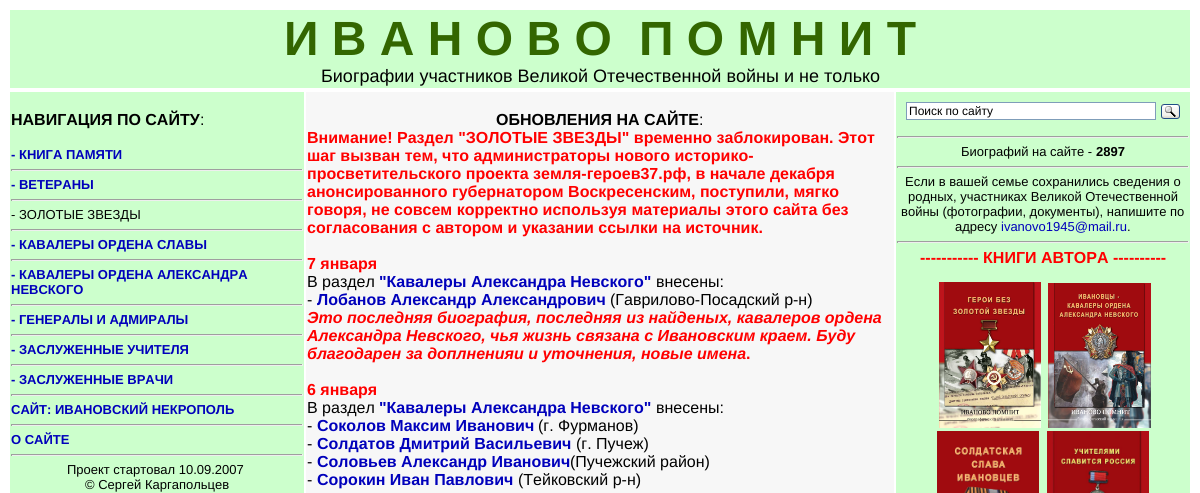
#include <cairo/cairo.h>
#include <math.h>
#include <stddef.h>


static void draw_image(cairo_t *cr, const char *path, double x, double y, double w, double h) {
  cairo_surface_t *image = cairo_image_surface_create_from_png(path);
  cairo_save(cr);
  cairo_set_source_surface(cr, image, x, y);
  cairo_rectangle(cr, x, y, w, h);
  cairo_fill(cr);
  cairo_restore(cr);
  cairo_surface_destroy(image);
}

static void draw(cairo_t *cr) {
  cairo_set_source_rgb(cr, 1, 1, 1);
  cairo_paint(cr);
  cairo_set_source_rgb(cr, 204 / 255.0, 1, 204 / 255.0);
  cairo_rectangle(cr, 10, 10, 1180, 78);
  cairo_fill(cr);
  cairo_rectangle(cr, 10, 92, 294, 401);
  cairo_fill(cr);
  cairo_set_source_rgb(cr, 159 / 255.0, 159 / 255.0, 159 / 255.0);
  cairo_rectangle(cr, 11, 169, 292, 1);
  cairo_fill(cr);
  cairo_set_source_rgb(cr, 238 / 255.0, 238 / 255.0, 238 / 255.0);
  cairo_rectangle(cr, 302, 169, 1, 2);
  cairo_fill(cr);
  cairo_rectangle(cr, 11, 170, 292, 1);
  cairo_fill(cr);
  cairo_set_source_rgb(cr, 159 / 255.0, 159 / 255.0, 159 / 255.0);
  cairo_rectangle(cr, 11, 169, 1, 2);
  cairo_fill(cr);
  cairo_rectangle(cr, 11, 199, 292, 1);
  cairo_fill(cr);
  cairo_set_source_rgb(cr, 238 / 255.0, 238 / 255.0, 238 / 255.0);
  cairo_rectangle(cr, 302, 199, 1, 2);
  cairo_fill(cr);
  cairo_rectangle(cr, 11, 200, 292, 1);
  cairo_fill(cr);
  cairo_set_source_rgb(cr, 159 / 255.0, 159 / 255.0, 159 / 255.0);
  cairo_rectangle(cr, 11, 199, 1, 2);
  cairo_fill(cr);
  cairo_rectangle(cr, 11, 229, 292, 1);
  cairo_fill(cr);
  cairo_set_source_rgb(cr, 238 / 255.0, 238 / 255.0, 238 / 255.0);
  cairo_rectangle(cr, 302, 229, 1, 2);
  cairo_fill(cr);
  cairo_rectangle(cr, 11, 230, 292, 1);
  cairo_fill(cr);
  cairo_set_source_rgb(cr, 159 / 255.0, 159 / 255.0, 159 / 255.0);
  cairo_rectangle(cr, 11, 229, 1, 2);
  cairo_fill(cr);
  cairo_rectangle(cr, 11, 259, 292, 1);
  cairo_fill(cr);
  cairo_set_source_rgb(cr, 238 / 255.0, 238 / 255.0, 238 / 255.0);
  cairo_rectangle(cr, 302, 259, 1, 2);
  cairo_fill(cr);
  cairo_rectangle(cr, 11, 260, 292, 1);
  cairo_fill(cr);
  cairo_set_source_rgb(cr, 159 / 255.0, 159 / 255.0, 159 / 255.0);
  cairo_rectangle(cr, 11, 259, 1, 2);
  cairo_fill(cr);
  cairo_rectangle(cr, 11, 304, 292, 1);
  cairo_fill(cr);
  cairo_set_source_rgb(cr, 238 / 255.0, 238 / 255.0, 238 / 255.0);
  cairo_rectangle(cr, 302, 304, 1, 2);
  cairo_fill(cr);
  cairo_rectangle(cr, 11, 305, 292, 1);
  cairo_fill(cr);
  cairo_set_source_rgb(cr, 159 / 255.0, 159 / 255.0, 159 / 255.0);
  cairo_rectangle(cr, 11, 304, 1, 2);
  cairo_fill(cr);
  cairo_rectangle(cr, 11, 334, 292, 1);
  cairo_fill(cr);
  cairo_set_source_rgb(cr, 238 / 255.0, 238 / 255.0, 238 / 255.0);
  cairo_rectangle(cr, 302, 334, 1, 2);
  cairo_fill(cr);
  cairo_rectangle(cr, 11, 335, 292, 1);
  cairo_fill(cr);
  cairo_set_source_rgb(cr, 159 / 255.0, 159 / 255.0, 159 / 255.0);
  cairo_rectangle(cr, 11, 334, 1, 2);
  cairo_fill(cr);
  cairo_rectangle(cr, 11, 364, 292, 1);
  cairo_fill(cr);
  cairo_set_source_rgb(cr, 238 / 255.0, 238 / 255.0, 238 / 255.0);
  cairo_rectangle(cr, 302, 364, 1, 2);
  cairo_fill(cr);
  cairo_rectangle(cr, 11, 365, 292, 1);
  cairo_fill(cr);
  cairo_set_source_rgb(cr, 159 / 255.0, 159 / 255.0, 159 / 255.0);
  cairo_rectangle(cr, 11, 364, 1, 2);
  cairo_fill(cr);
  cairo_rectangle(cr, 11, 394, 292, 1);
  cairo_fill(cr);
  cairo_set_source_rgb(cr, 238 / 255.0, 238 / 255.0, 238 / 255.0);
  cairo_rectangle(cr, 302, 394, 1, 2);
  cairo_fill(cr);
  cairo_rectangle(cr, 11, 395, 292, 1);
  cairo_fill(cr);
  cairo_set_source_rgb(cr, 159 / 255.0, 159 / 255.0, 159 / 255.0);
  cairo_rectangle(cr, 11, 394, 1, 2);
  cairo_fill(cr);
  cairo_rectangle(cr, 11, 424, 292, 1);
  cairo_fill(cr);
  cairo_set_source_rgb(cr, 238 / 255.0, 238 / 255.0, 238 / 255.0);
  cairo_rectangle(cr, 302, 424, 1, 2);
  cairo_fill(cr);
  cairo_rectangle(cr, 11, 425, 292, 1);
  cairo_fill(cr);
  cairo_set_source_rgb(cr, 159 / 255.0, 159 / 255.0, 159 / 255.0);
  cairo_rectangle(cr, 11, 424, 1, 2);
  cairo_fill(cr);
  cairo_rectangle(cr, 11, 454, 292, 1);
  cairo_fill(cr);
  cairo_set_source_rgb(cr, 238 / 255.0, 238 / 255.0, 238 / 255.0);
  cairo_rectangle(cr, 302, 454, 1, 2);
  cairo_fill(cr);
  cairo_rectangle(cr, 11, 455, 292, 1);
  cairo_fill(cr);
  cairo_set_source_rgb(cr, 159 / 255.0, 159 / 255.0, 159 / 255.0);
  cairo_rectangle(cr, 11, 454, 1, 2);
  cairo_fill(cr);
  cairo_set_source_rgb(cr, 247 / 255.0, 247 / 255.0, 247 / 255.0);
  cairo_rectangle(cr, 306, 92, 588, 401);
  cairo_fill(cr);
  cairo_set_source_rgb(cr, 204 / 255.0, 1, 204 / 255.0);
  cairo_rectangle(cr, 896, 92, 294, 401);
  cairo_fill(cr);
  cairo_set_source_rgb(cr, 1, 1, 1);
  cairo_rectangle(cr, 906.5, 102.5, 249, 17);
  cairo_fill_preserve(cr);
  cairo_set_source_rgb(cr, 127 / 255.0, 157 / 255.0, 185 / 255.0);
  cairo_set_line_width(cr, 1);
  cairo_stroke(cr);
  draw_image(cr, "images/1.png", 1161, 104, 19, 15);
  cairo_set_source_rgb(cr, 159 / 255.0, 159 / 255.0, 159 / 255.0);
  cairo_rectangle(cr, 897, 136, 292, 1);
  cairo_fill(cr);
  cairo_set_source_rgb(cr, 238 / 255.0, 238 / 255.0, 238 / 255.0);
  cairo_rectangle(cr, 1188, 136, 1, 2);
  cairo_fill(cr);
  cairo_rectangle(cr, 897, 137, 292, 1);
  cairo_fill(cr);
  cairo_set_source_rgb(cr, 159 / 255.0, 159 / 255.0, 159 / 255.0);
  cairo_rectangle(cr, 897, 136, 1, 2);
  cairo_fill(cr);
  cairo_rectangle(cr, 897, 166, 292, 1);
  cairo_fill(cr);
  cairo_set_source_rgb(cr, 238 / 255.0, 238 / 255.0, 238 / 255.0);
  cairo_rectangle(cr, 1188, 166, 1, 2);
  cairo_fill(cr);
  cairo_rectangle(cr, 897, 167, 292, 1);
  cairo_fill(cr);
  cairo_set_source_rgb(cr, 159 / 255.0, 159 / 255.0, 159 / 255.0);
  cairo_rectangle(cr, 897, 166, 1, 2);
  cairo_fill(cr);
  cairo_rectangle(cr, 897, 241, 292, 1);
  cairo_fill(cr);
  cairo_set_source_rgb(cr, 238 / 255.0, 238 / 255.0, 238 / 255.0);
  cairo_rectangle(cr, 1188, 241, 1, 2);
  cairo_fill(cr);
  cairo_rectangle(cr, 897, 242, 292, 1);
  cairo_fill(cr);
  cairo_set_source_rgb(cr, 159 / 255.0, 159 / 255.0, 159 / 255.0);
  cairo_rectangle(cr, 897, 241, 1, 2);
  cairo_fill(cr);
  draw_image(cr, "images/2.png", 939, 282, 102, 146);
  draw_image(cr, "images/3.png", 1048, 283, 103, 145);
  draw_image(cr, "images/4.png", 937, 431, 102, 62);
  draw_image(cr, "images/5.png", 1047, 431, 102, 62);
  cairo_select_font_face(cr, "Liberation Sans", CAIRO_FONT_SLANT_NORMAL, CAIRO_FONT_WEIGHT_BOLD);
  cairo_set_font_size(cr, 48);
  cairo_set_source_rgb(cr, 51 / 255.0, 102 / 255.0, 0);
  cairo_move_to(cr, 284, 55);
  cairo_show_text(cr, "И В А Н О В О");
  cairo_move_to(cr, 639, 55);
  cairo_show_text(cr, "П О М Н И Т");
  cairo_select_font_face(cr, "Liberation Sans", CAIRO_FONT_SLANT_NORMAL, CAIRO_FONT_WEIGHT_NORMAL);
  cairo_set_font_size(cr, 18);
  cairo_set_source_rgb(cr, 0, 0, 0);
  cairo_move_to(cr, 321, 82);
  cairo_show_text(cr, "Биографии участников Великой Отечественной войны и не только");
  cairo_select_font_face(cr, "Liberation Sans", CAIRO_FONT_SLANT_NORMAL, CAIRO_FONT_WEIGHT_BOLD);
  cairo_set_font_size(cr, 16);
  cairo_move_to(cr, 11, 125);
  cairo_show_text(cr, "НАВИГАЦИЯ ПО САЙТУ");
  cairo_select_font_face(cr, "Liberation Sans", CAIRO_FONT_SLANT_NORMAL, CAIRO_FONT_WEIGHT_NORMAL);
  cairo_move_to(cr, 200, 125);
  cairo_show_text(cr, ":");
  cairo_select_font_face(cr, "Liberation Sans", CAIRO_FONT_SLANT_NORMAL, CAIRO_FONT_WEIGHT_BOLD);
  cairo_set_font_size(cr, 13);
  cairo_set_source_rgb(cr, 0, 0, 187 / 255.0);
  cairo_move_to(cr, 11, 159);
  cairo_show_text(cr, "- КНИГА ПАМЯТИ");
  cairo_move_to(cr, 11, 189);
  cairo_show_text(cr, "- ВЕТЕРАНЫ");
  cairo_select_font_face(cr, "Liberation Sans", CAIRO_FONT_SLANT_NORMAL, CAIRO_FONT_WEIGHT_NORMAL);
  cairo_set_source_rgb(cr, 0, 0, 0);
  cairo_move_to(cr, 11, 219);
  cairo_show_text(cr, "- ЗОЛОТЫЕ ЗВЕЗДЫ");
  cairo_select_font_face(cr, "Liberation Sans", CAIRO_FONT_SLANT_NORMAL, CAIRO_FONT_WEIGHT_BOLD);
  cairo_set_source_rgb(cr, 0, 0, 187 / 255.0);
  cairo_move_to(cr, 11, 249);
  cairo_show_text(cr, "- КАВАЛЕРЫ ОРДЕНА СЛАВЫ");
  cairo_move_to(cr, 11, 279);
  cairo_show_text(cr, "- КАВАЛЕРЫ ОРДЕНА АЛЕКСАНДРА");
  cairo_move_to(cr, 11, 294);
  cairo_show_text(cr, "НЕВСКОГО");
  cairo_move_to(cr, 11, 324);
  cairo_show_text(cr, "- ГЕНЕРАЛЫ И АДМИРАЛЫ");
  cairo_move_to(cr, 11, 354);
  cairo_show_text(cr, "- ЗАСЛУЖЕННЫЕ УЧИТЕЛЯ");
  cairo_move_to(cr, 11, 384);
  cairo_show_text(cr, "- ЗАСЛУЖЕННЫЕ ВРАЧИ");
  cairo_move_to(cr, 11, 414);
  cairo_show_text(cr, "САЙТ: ИВАНОВСКИЙ НЕКРОПОЛЬ");
  cairo_move_to(cr, 11, 444);
  cairo_show_text(cr, "О САЙТЕ");
  cairo_select_font_face(cr, "Liberation Sans", CAIRO_FONT_SLANT_NORMAL, CAIRO_FONT_WEIGHT_NORMAL);
  cairo_set_source_rgb(cr, 0, 0, 0);
  cairo_move_to(cr, 67, 474);
  cairo_show_text(cr, "Проект стартовал 10.09.2007");
  cairo_move_to(cr, 85, 489);
  cairo_show_text(cr, "© Сергей Каргапольцев");
  cairo_select_font_face(cr, "Liberation Sans", CAIRO_FONT_SLANT_NORMAL, CAIRO_FONT_WEIGHT_BOLD);
  cairo_set_font_size(cr, 16);
  cairo_move_to(cr, 496, 125);
  cairo_show_text(cr, "ОБНОВЛЕНИЯ НА САЙТЕ");
  cairo_select_font_face(cr, "Liberation Sans", CAIRO_FONT_SLANT_NORMAL, CAIRO_FONT_WEIGHT_NORMAL);
  cairo_move_to(cr, 699, 125);
  cairo_show_text(cr, ":");
  cairo_select_font_face(cr, "Liberation Sans", CAIRO_FONT_SLANT_NORMAL, CAIRO_FONT_WEIGHT_BOLD);
  cairo_set_source_rgb(cr, 1, 0, 0);
  cairo_move_to(cr, 307, 143);
  cairo_show_text(cr, "Внимание! Раздел \"ЗОЛОТЫЕ ЗВЕЗДЫ\" временно заблокирован. Этот");
  cairo_move_to(cr, 307, 161);
  cairo_show_text(cr, "шаг вызван тем, что администраторы нового историко-");
  cairo_move_to(cr, 307, 179);
  cairo_show_text(cr, "просветительского проекта земля-героев37.рф, в начале декабря");
  cairo_move_to(cr, 307, 197);
  cairo_show_text(cr, "анонсированного губернатором Воскресенским, поступили, мягко");
  cairo_move_to(cr, 307, 215);
  cairo_show_text(cr, "говоря, не совсем корректно используя материалы этого сайта без");
  cairo_move_to(cr, 307, 233);
  cairo_show_text(cr, "согласования с автором и указании ссылки на источник.");
  cairo_move_to(cr, 307, 269);
  cairo_show_text(cr, "7 января");
  cairo_select_font_face(cr, "Liberation Sans", CAIRO_FONT_SLANT_NORMAL, CAIRO_FONT_WEIGHT_NORMAL);
  cairo_set_source_rgb(cr, 0, 0, 0);
  cairo_move_to(cr, 307, 287);
  cairo_show_text(cr, "В раздел");
  cairo_select_font_face(cr, "Liberation Sans", CAIRO_FONT_SLANT_NORMAL, CAIRO_FONT_WEIGHT_BOLD);
  cairo_set_source_rgb(cr, 0, 0, 187 / 255.0);
  cairo_move_to(cr, 379, 287);
  cairo_show_text(cr, "\"Кавалеры Александра Невского\"");
  cairo_select_font_face(cr, "Liberation Sans", CAIRO_FONT_SLANT_NORMAL, CAIRO_FONT_WEIGHT_NORMAL);
  cairo_set_source_rgb(cr, 0, 0, 0);
  cairo_move_to(cr, 656, 287);
  cairo_show_text(cr, "внесены:");
  cairo_move_to(cr, 307, 305);
  cairo_show_text(cr, "-");
  cairo_select_font_face(cr, "Liberation Sans", CAIRO_FONT_SLANT_NORMAL, CAIRO_FONT_WEIGHT_BOLD);
  cairo_set_source_rgb(cr, 0, 0, 187 / 255.0);
  cairo_move_to(cr, 317, 305);
  cairo_show_text(cr, "Лобанов Александр Александрович");
  cairo_select_font_face(cr, "Liberation Sans", CAIRO_FONT_SLANT_NORMAL, CAIRO_FONT_WEIGHT_NORMAL);
  cairo_set_source_rgb(cr, 0, 0, 0);
  cairo_move_to(cr, 610, 305);
  cairo_show_text(cr, "(Гаврилово-Посадский р-н)");
  cairo_select_font_face(cr, "Liberation Sans", CAIRO_FONT_SLANT_ITALIC, CAIRO_FONT_WEIGHT_BOLD);
  cairo_set_source_rgb(cr, 1, 0, 0);
  cairo_move_to(cr, 307, 323);
  cairo_show_text(cr, "Это последняя биография, последняя из найденых, кавалеров ордена");
  cairo_move_to(cr, 307, 341);
  cairo_show_text(cr, "Александра Невского, чья жизнь связана с Ивановским краем. Буду");
  cairo_move_to(cr, 307, 359);
  cairo_show_text(cr, "благодарен за доплненияи и уточнения, новые имена");
  cairo_select_font_face(cr, "Liberation Sans", CAIRO_FONT_SLANT_NORMAL, CAIRO_FONT_WEIGHT_BOLD);
  cairo_move_to(cr, 746, 359);
  cairo_show_text(cr, ".");
  cairo_move_to(cr, 307, 395);
  cairo_show_text(cr, "6 января");
  cairo_select_font_face(cr, "Liberation Sans", CAIRO_FONT_SLANT_NORMAL, CAIRO_FONT_WEIGHT_NORMAL);
  cairo_set_source_rgb(cr, 0, 0, 0);
  cairo_move_to(cr, 307, 413);
  cairo_show_text(cr, "В раздел");
  cairo_select_font_face(cr, "Liberation Sans", CAIRO_FONT_SLANT_NORMAL, CAIRO_FONT_WEIGHT_BOLD);
  cairo_set_source_rgb(cr, 0, 0, 187 / 255.0);
  cairo_move_to(cr, 379, 413);
  cairo_show_text(cr, "\"Кавалеры Александра Невского\"");
  cairo_select_font_face(cr, "Liberation Sans", CAIRO_FONT_SLANT_NORMAL, CAIRO_FONT_WEIGHT_NORMAL);
  cairo_set_source_rgb(cr, 0, 0, 0);
  cairo_move_to(cr, 656, 413);
  cairo_show_text(cr, "внесены:");
  cairo_move_to(cr, 307, 431);
  cairo_show_text(cr, "-");
  cairo_select_font_face(cr, "Liberation Sans", CAIRO_FONT_SLANT_NORMAL, CAIRO_FONT_WEIGHT_BOLD);
  cairo_set_source_rgb(cr, 0, 0, 187 / 255.0);
  cairo_move_to(cr, 317, 431);
  cairo_show_text(cr, "Соколов Максим Иванович");
  cairo_select_font_face(cr, "Liberation Sans", CAIRO_FONT_SLANT_NORMAL, CAIRO_FONT_WEIGHT_NORMAL);
  cairo_set_source_rgb(cr, 0, 0, 0);
  cairo_move_to(cr, 538, 431);
  cairo_show_text(cr, "(г. Фурманов)");
  cairo_move_to(cr, 307, 449);
  cairo_show_text(cr, "-");
  cairo_select_font_face(cr, "Liberation Sans", CAIRO_FONT_SLANT_NORMAL, CAIRO_FONT_WEIGHT_BOLD);
  cairo_set_source_rgb(cr, 0, 0, 187 / 255.0);
  cairo_move_to(cr, 317, 449);
  cairo_show_text(cr, "Солдатов Дмитрий Васильевич");
  cairo_select_font_face(cr, "Liberation Sans", CAIRO_FONT_SLANT_NORMAL, CAIRO_FONT_WEIGHT_NORMAL);
  cairo_set_source_rgb(cr, 0, 0, 0);
  cairo_move_to(cr, 576, 449);
  cairo_show_text(cr, "(г. Пучеж)");
  cairo_move_to(cr, 307, 467);
  cairo_show_text(cr, "-");
  cairo_select_font_face(cr, "Liberation Sans", CAIRO_FONT_SLANT_NORMAL, CAIRO_FONT_WEIGHT_BOLD);
  cairo_set_source_rgb(cr, 0, 0, 187 / 255.0);
  cairo_move_to(cr, 317, 467);
  cairo_show_text(cr, "Соловьев Александр Иванович");
  cairo_select_font_face(cr, "Liberation Sans", CAIRO_FONT_SLANT_NORMAL, CAIRO_FONT_WEIGHT_NORMAL);
  cairo_set_source_rgb(cr, 0, 0, 0);
  cairo_move_to(cr, 570, 467);
  cairo_show_text(cr, "(Пучежский район)");
  cairo_move_to(cr, 307, 485);
  cairo_show_text(cr, "-");
  cairo_select_font_face(cr, "Liberation Sans", CAIRO_FONT_SLANT_NORMAL, CAIRO_FONT_WEIGHT_BOLD);
  cairo_set_source_rgb(cr, 0, 0, 187 / 255.0);
  cairo_move_to(cr, 317, 485);
  cairo_show_text(cr, "Сорокин Иван Павлович");
  cairo_select_font_face(cr, "Liberation Sans", CAIRO_FONT_SLANT_NORMAL, CAIRO_FONT_WEIGHT_NORMAL);
  cairo_set_source_rgb(cr, 0, 0, 0);
  cairo_move_to(cr, 518, 485);
  cairo_show_text(cr, "(Тейковский р-н)");
  cairo_set_font_size(cr, 12);
  cairo_move_to(cr, 909, 115);
  cairo_show_text(cr, "Поиск по сайту");
  cairo_set_font_size(cr, 13);
  cairo_move_to(cr, 961, 156);
  cairo_show_text(cr, "Биографий на сайте -");
  cairo_select_font_face(cr, "Liberation Sans", CAIRO_FONT_SLANT_NORMAL, CAIRO_FONT_WEIGHT_BOLD);
  cairo_move_to(cr, 1096, 156);
  cairo_show_text(cr, "2897");
  cairo_select_font_face(cr, "Liberation Sans", CAIRO_FONT_SLANT_NORMAL, CAIRO_FONT_WEIGHT_NORMAL);
  cairo_move_to(cr, 905, 186);
  cairo_show_text(cr, "Если в вашей семье сохранились сведения о");
  cairo_move_to(cr, 908, 201);
  cairo_show_text(cr, "родных, участниках Великой Отечественной");
  cairo_move_to(cr, 901, 216);
  cairo_show_text(cr, "войны (фотографии, документы), напишите по");
  cairo_move_to(cr, 955, 231);
  cairo_show_text(cr, "адресу");
  cairo_set_source_rgb(cr, 0, 0, 187 / 255.0);
  cairo_move_to(cr, 1001, 231);
  cairo_show_text(cr, "ivanovo1945@mail.ru");
  cairo_set_source_rgb(cr, 0, 0, 0);
  cairo_move_to(cr, 1127, 231);
  cairo_show_text(cr, ".");
  cairo_select_font_face(cr, "Liberation Sans", CAIRO_FONT_SLANT_NORMAL, CAIRO_FONT_WEIGHT_BOLD);
  cairo_set_font_size(cr, 16);
  cairo_set_source_rgb(cr, 1, 0, 0);
  cairo_move_to(cr, 920, 263);
  cairo_show_text(cr, "----------- КНИГИ АВТОРА ----------");
}

int main(void) {
  cairo_surface_t *surface = cairo_image_surface_create(CAIRO_FORMAT_RGB24, 1200, 493);
  cairo_t *cr = cairo_create(surface);
  cairo_font_options_t *options = cairo_font_options_create();
  cairo_font_options_set_hint_metrics(options, CAIRO_HINT_METRICS_OFF);
  cairo_font_options_set_hint_style(options, CAIRO_HINT_STYLE_NONE);
  cairo_set_font_options(cr, options);
  cairo_set_miter_limit(cr, 4);
  draw(cr);
  cairo_surface_write_to_png(surface, "out.png");
  cairo_font_options_destroy(options);
  cairo_destroy(cr);
  cairo_surface_destroy(surface);
  return 0;
}
